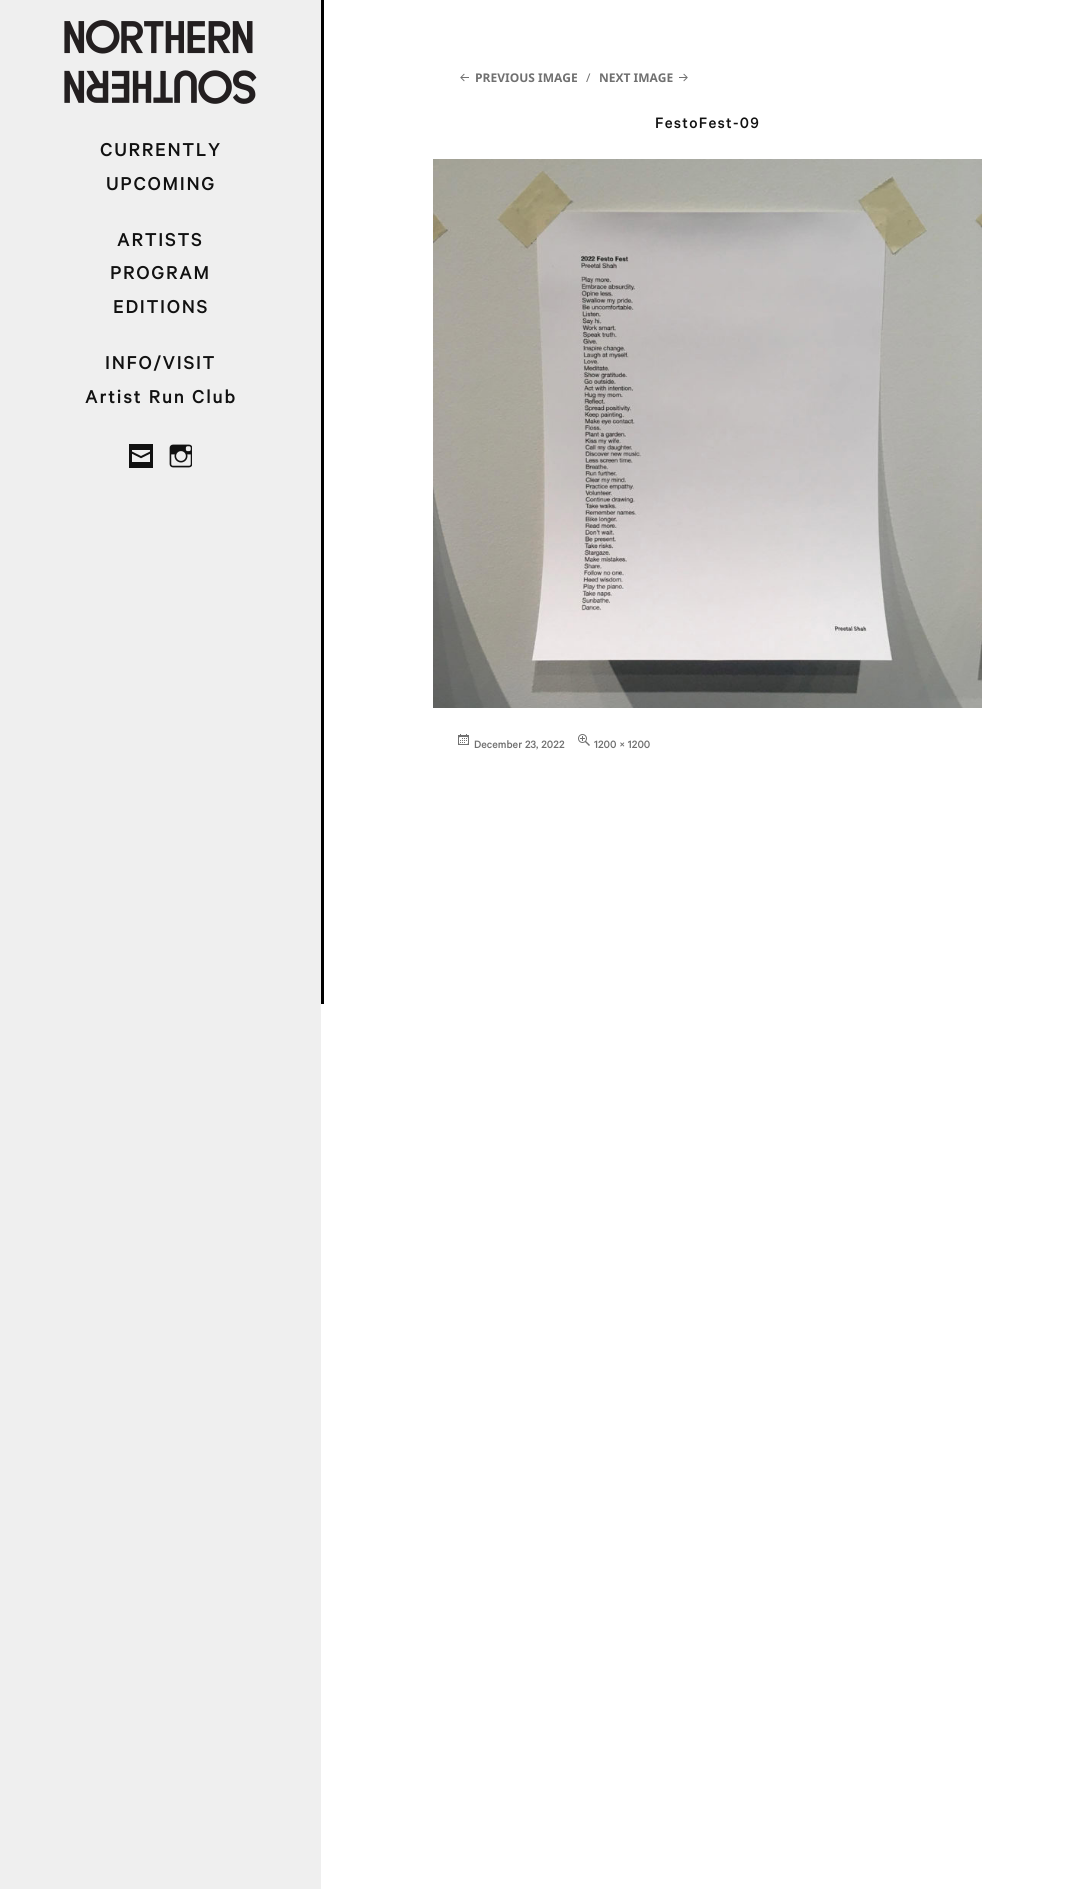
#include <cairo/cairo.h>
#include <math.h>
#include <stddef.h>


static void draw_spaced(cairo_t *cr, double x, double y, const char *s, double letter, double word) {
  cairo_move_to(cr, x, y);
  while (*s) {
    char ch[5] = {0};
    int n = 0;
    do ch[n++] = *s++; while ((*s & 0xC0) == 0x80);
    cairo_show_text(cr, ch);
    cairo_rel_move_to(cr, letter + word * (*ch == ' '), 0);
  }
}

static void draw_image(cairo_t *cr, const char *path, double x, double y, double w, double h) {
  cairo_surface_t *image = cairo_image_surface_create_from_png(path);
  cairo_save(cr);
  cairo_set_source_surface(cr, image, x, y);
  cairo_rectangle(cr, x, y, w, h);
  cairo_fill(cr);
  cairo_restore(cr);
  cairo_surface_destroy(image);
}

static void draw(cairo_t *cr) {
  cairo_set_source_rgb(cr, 1, 1, 1);
  cairo_paint(cr);
  cairo_set_source_rgb(cr, 239 / 255.0, 239 / 255.0, 239 / 255.0);
  cairo_rectangle(cr, 0, 0, 321, 1889);
  cairo_fill(cr);
  draw_image(cr, "images/1.png", 64, 20, 193, 84);
  cairo_set_source_rgb(cr, 17 / 255.0, 17 / 255.0, 17 / 255.0);
  cairo_rectangle(cr, 129, 444, 24, 24);
  cairo_fill(cr);
  draw_image(cr, "images/2.png", 132, 450, 18, 12);
  draw_image(cr, "images/3.png", 169, 444, 23, 24);
  cairo_set_source_rgb(cr, 0, 0, 0);
  cairo_rectangle(cr, 321, 0, 3, 1004);
  cairo_fill(cr);
  draw_image(cr, "images/4.png", 460, 73, 9, 9);
  draw_image(cr, "images/5.png", 679, 73, 9, 9);
  draw_image(cr, "images/6.png", 433, 159, 549, 549);
  draw_image(cr, "images/7.png", 458, 734, 11, 11);
  draw_image(cr, "images/8.png", 578, 734, 12, 12);
  cairo_select_font_face(cr, "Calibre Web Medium", CAIRO_FONT_SLANT_NORMAL, CAIRO_FONT_WEIGHT_NORMAL);
  cairo_set_font_size(cr, 21);
  cairo_set_source_rgb(cr, 17 / 255.0, 17 / 255.0, 17 / 255.0);
  draw_spaced(cr, 100, 156, "CURRENTLY", 1.6, 0);
  draw_spaced(cr, 106, 190, "UPCOMING", 1.6, 0);
  draw_spaced(cr, 117, 246, "ARTISTS", 1.6, 0);
  draw_spaced(cr, 110, 279, "PROGRAM", 1.6, 0);
  draw_spaced(cr, 113, 313, "EDITIONS", 1.6, 0);
  draw_spaced(cr, 105, 369, "INFO/VISIT", 1.6, 0);
  draw_spaced(cr, 85, 403, "Artist Run Club", 1.6, 0);
  cairo_select_font_face(cr, "Noto Sans", CAIRO_FONT_SLANT_NORMAL, CAIRO_FONT_WEIGHT_BOLD);
  cairo_set_font_size(cr, 12);
  cairo_set_source_rgb(cr, 112 / 255.0, 112 / 255.0, 112 / 255.0);
  cairo_move_to(cr, 475, 82);
  cairo_show_text(cr, "PREVIOUS IMAGE");
  cairo_select_font_face(cr, "Noto Sans", CAIRO_FONT_SLANT_NORMAL, CAIRO_FONT_WEIGHT_NORMAL);
  cairo_move_to(cr, 586, 82);
  cairo_show_text(cr, "∕");
  cairo_select_font_face(cr, "Noto Sans", CAIRO_FONT_SLANT_NORMAL, CAIRO_FONT_WEIGHT_BOLD);
  cairo_move_to(cr, 599, 82);
  cairo_show_text(cr, "NEXT IMAGE");
  cairo_select_font_face(cr, "Calibre Web Medium", CAIRO_FONT_SLANT_NORMAL, CAIRO_FONT_WEIGHT_NORMAL);
  cairo_set_font_size(cr, 17);
  cairo_set_source_rgb(cr, 17 / 255.0, 17 / 255.0, 17 / 255.0);
  draw_spaced(cr, 655, 128, "FestoFest-09", 1.25, 0);
  cairo_set_font_size(cr, 12);
  cairo_set_source_rgb(cr, 112 / 255.0, 112 / 255.0, 112 / 255.0);
  cairo_move_to(cr, 474, 748);
  cairo_show_text(cr, "December 23, 2022");
  cairo_move_to(cr, 594, 748);
  cairo_show_text(cr, "1200 × 1200");
}

int main(void) {
  cairo_surface_t *surface = cairo_image_surface_create(CAIRO_FORMAT_RGB24, 1091, 1889);
  cairo_t *cr = cairo_create(surface);
  cairo_font_options_t *options = cairo_font_options_create();
  cairo_font_options_set_hint_metrics(options, CAIRO_HINT_METRICS_OFF);
  cairo_font_options_set_hint_style(options, CAIRO_HINT_STYLE_NONE);
  cairo_set_font_options(cr, options);
  cairo_set_miter_limit(cr, 4);
  draw(cr);
  cairo_surface_write_to_png(surface, "out.png");
  cairo_font_options_destroy(options);
  cairo_destroy(cr);
  cairo_surface_destroy(surface);
  return 0;
}
